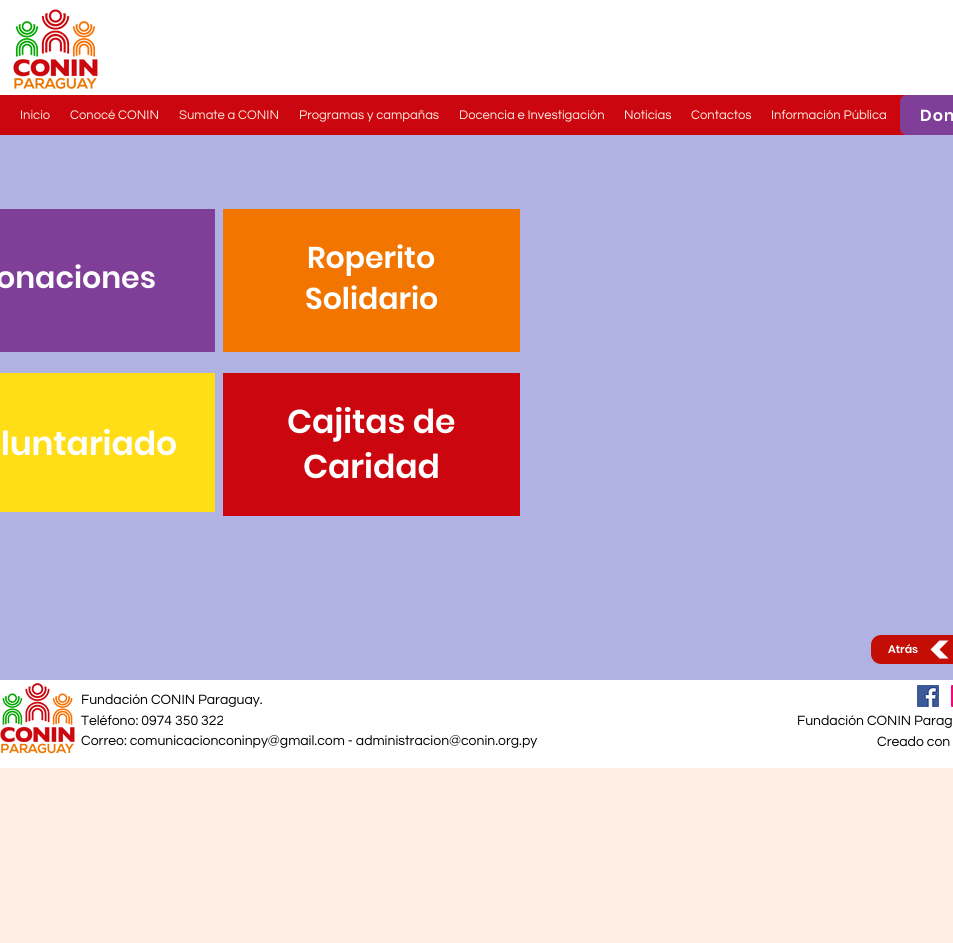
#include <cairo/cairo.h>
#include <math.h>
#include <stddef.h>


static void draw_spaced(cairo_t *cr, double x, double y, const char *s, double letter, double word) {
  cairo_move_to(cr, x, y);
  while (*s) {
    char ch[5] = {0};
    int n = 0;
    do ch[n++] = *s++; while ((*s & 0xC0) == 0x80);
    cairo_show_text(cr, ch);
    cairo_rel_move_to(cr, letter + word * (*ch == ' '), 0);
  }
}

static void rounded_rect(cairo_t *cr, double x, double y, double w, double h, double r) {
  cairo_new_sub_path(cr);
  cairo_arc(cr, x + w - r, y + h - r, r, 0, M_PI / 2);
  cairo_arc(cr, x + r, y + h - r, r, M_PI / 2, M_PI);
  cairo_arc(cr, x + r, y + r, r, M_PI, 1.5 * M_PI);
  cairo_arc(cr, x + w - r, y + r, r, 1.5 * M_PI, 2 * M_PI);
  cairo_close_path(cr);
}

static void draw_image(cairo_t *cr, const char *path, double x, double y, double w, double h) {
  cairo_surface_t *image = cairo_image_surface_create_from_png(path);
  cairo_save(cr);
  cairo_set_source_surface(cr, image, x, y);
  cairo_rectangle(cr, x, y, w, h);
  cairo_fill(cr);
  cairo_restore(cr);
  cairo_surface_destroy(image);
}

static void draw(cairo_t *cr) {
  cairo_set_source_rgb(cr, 254 / 255.0, 238 / 255.0, 227 / 255.0);
  cairo_paint(cr);
  cairo_set_source_rgb(cr, 1, 1, 1);
  cairo_rectangle(cr, 0, 0, 953, 95);
  cairo_fill(cr);
  draw_image(cr, "images/1.png", 13, 9, 85, 80);
  cairo_set_source_rgb(cr, 204 / 255.0, 6 / 255.0, 14 / 255.0);
  cairo_rectangle(cr, 0, 95, 907, 40);
  cairo_fill(cr);
  cairo_set_source_rgb(cr, 127 / 255.0, 63 / 255.0, 152 / 255.0);
  rounded_rect(cr, 900, 95, 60, 40, 7);
  cairo_fill(cr);
  cairo_set_source_rgb(cr, 176 / 255.0, 178 / 255.0, 228 / 255.0);
  cairo_rectangle(cr, 0, 135, 953, 545);
  cairo_fill(cr);
  cairo_set_source_rgb(cr, 127 / 255.0, 63 / 255.0, 152 / 255.0);
  cairo_rectangle(cr, 0, 209, 215, 143);
  cairo_fill(cr);
  cairo_set_source_rgb(cr, 242 / 255.0, 117 / 255.0, 0);
  cairo_rectangle(cr, 223, 209, 297, 143);
  cairo_fill(cr);
  cairo_set_source_rgb(cr, 1, 222 / 255.0, 23 / 255.0);
  cairo_rectangle(cr, 0, 373, 215, 139);
  cairo_fill(cr);
  cairo_set_source_rgb(cr, 204 / 255.0, 6 / 255.0, 14 / 255.0);
  cairo_rectangle(cr, 223, 373, 297, 143);
  cairo_fill(cr);
  cairo_set_source_rgb(cr, 196 / 255.0, 13 / 255.0, 4 / 255.0);
  rounded_rect(cr, 871, 635, 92, 29, 10);
  cairo_fill(cr);
  cairo_set_source_rgb(cr, 1, 1, 1);
  cairo_new_path(cr);
  cairo_move_to(cr, 939.5, 640.5);
  cairo_line_to(cr, 948.5, 640.5);
  cairo_line_to(cr, 939.5, 649.5);
  cairo_line_to(cr, 948.5, 658.5);
  cairo_line_to(cr, 939.5, 658.5);
  cairo_line_to(cr, 930.5, 649.5);
  cairo_close_path(cr);
  cairo_fill(cr);
  cairo_rectangle(cr, 0, 680, 953, 88);
  cairo_fill(cr);
  draw_image(cr, "images/2.png", 0, 683, 75, 71);
  draw_image(cr, "images/3.png", 917, 685, 22, 22);
  draw_image(cr, "images/4.png", 951, 685, 2, 22);
  cairo_select_font_face(cr, "Questrial", CAIRO_FONT_SLANT_NORMAL, CAIRO_FONT_WEIGHT_NORMAL);
  cairo_set_font_size(cr, 13);
  cairo_set_source_rgb(cr, 254 / 255.0, 238 / 255.0, 227 / 255.0);
  cairo_move_to(cr, 20, 119);
  cairo_show_text(cr, "Inicio");
  cairo_move_to(cr, 70, 119);
  cairo_show_text(cr, "Conocé CONIN");
  cairo_set_source_rgb(cr, 252 / 255.0, 231 / 255.0, 218 / 255.0);
  cairo_move_to(cr, 179, 119);
  cairo_show_text(cr, "Sumate a CONIN");
  cairo_set_source_rgb(cr, 254 / 255.0, 238 / 255.0, 227 / 255.0);
  cairo_move_to(cr, 299, 119);
  cairo_show_text(cr, "Programas y campañas");
  cairo_move_to(cr, 459, 119);
  cairo_show_text(cr, "Docencia e Investigación");
  cairo_move_to(cr, 624, 119);
  cairo_show_text(cr, "Noticias");
  cairo_move_to(cr, 691, 119);
  cairo_show_text(cr, "Contactos");
  cairo_move_to(cr, 771, 119);
  cairo_show_text(cr, "Información Pública");
  cairo_select_font_face(cr, "Poppins SemiBold", CAIRO_FONT_SLANT_NORMAL, CAIRO_FONT_WEIGHT_NORMAL);
  cairo_set_font_size(cr, 16);
  cairo_set_source_rgb(cr, 1, 1, 1);
  draw_spaced(cr, 920, 121, "Don", 1, 0);
  cairo_set_font_size(cr, 30);
  cairo_move_to(cr, -4, 288);
  cairo_show_text(cr, "onaciones");
  cairo_move_to(cr, 307, 268);
  cairo_show_text(cr, "Roperito");
  cairo_move_to(cr, 305, 309);
  cairo_show_text(cr, "Solidario");
  cairo_set_font_size(cr, 33);
  cairo_move_to(cr, 1, 455);
  cairo_show_text(cr, "luntariado");
  cairo_move_to(cr, 287, 433);
  cairo_show_text(cr, "Cajitas de");
  cairo_move_to(cr, 303, 478);
  cairo_show_text(cr, "Caridad");
  cairo_set_font_size(cr, 11);
  cairo_move_to(cr, 888, 653);
  cairo_show_text(cr, "Atrás");
  cairo_select_font_face(cr, "Questrial", CAIRO_FONT_SLANT_NORMAL, CAIRO_FONT_WEIGHT_NORMAL);
  cairo_set_font_size(cr, 14);
  cairo_set_source_rgb(cr, 0, 0, 0);
  cairo_move_to(cr, 81, 704);
  cairo_show_text(cr, "Fundación CONIN Paraguay.");
  cairo_move_to(cr, 81, 725);
  cairo_show_text(cr, "Teléfono: 0974 350 322");
  cairo_move_to(cr, 81, 745);
  cairo_show_text(cr, "Correo: comunicacionconinpy@gmail.com - administracion@conin.org.py");
  cairo_move_to(cr, 797, 725);
  cairo_show_text(cr, "Fundación CONIN Parag");
  cairo_move_to(cr, 877, 746);
  cairo_show_text(cr, "Creado con");
}

int main(void) {
  cairo_surface_t *surface = cairo_image_surface_create(CAIRO_FORMAT_RGB24, 953, 943);
  cairo_t *cr = cairo_create(surface);
  cairo_font_options_t *options = cairo_font_options_create();
  cairo_font_options_set_hint_metrics(options, CAIRO_HINT_METRICS_OFF);
  cairo_font_options_set_hint_style(options, CAIRO_HINT_STYLE_NONE);
  cairo_set_font_options(cr, options);
  cairo_set_miter_limit(cr, 4);
  draw(cr);
  cairo_surface_write_to_png(surface, "out.png");
  cairo_font_options_destroy(options);
  cairo_destroy(cr);
  cairo_surface_destroy(surface);
  return 0;
}
